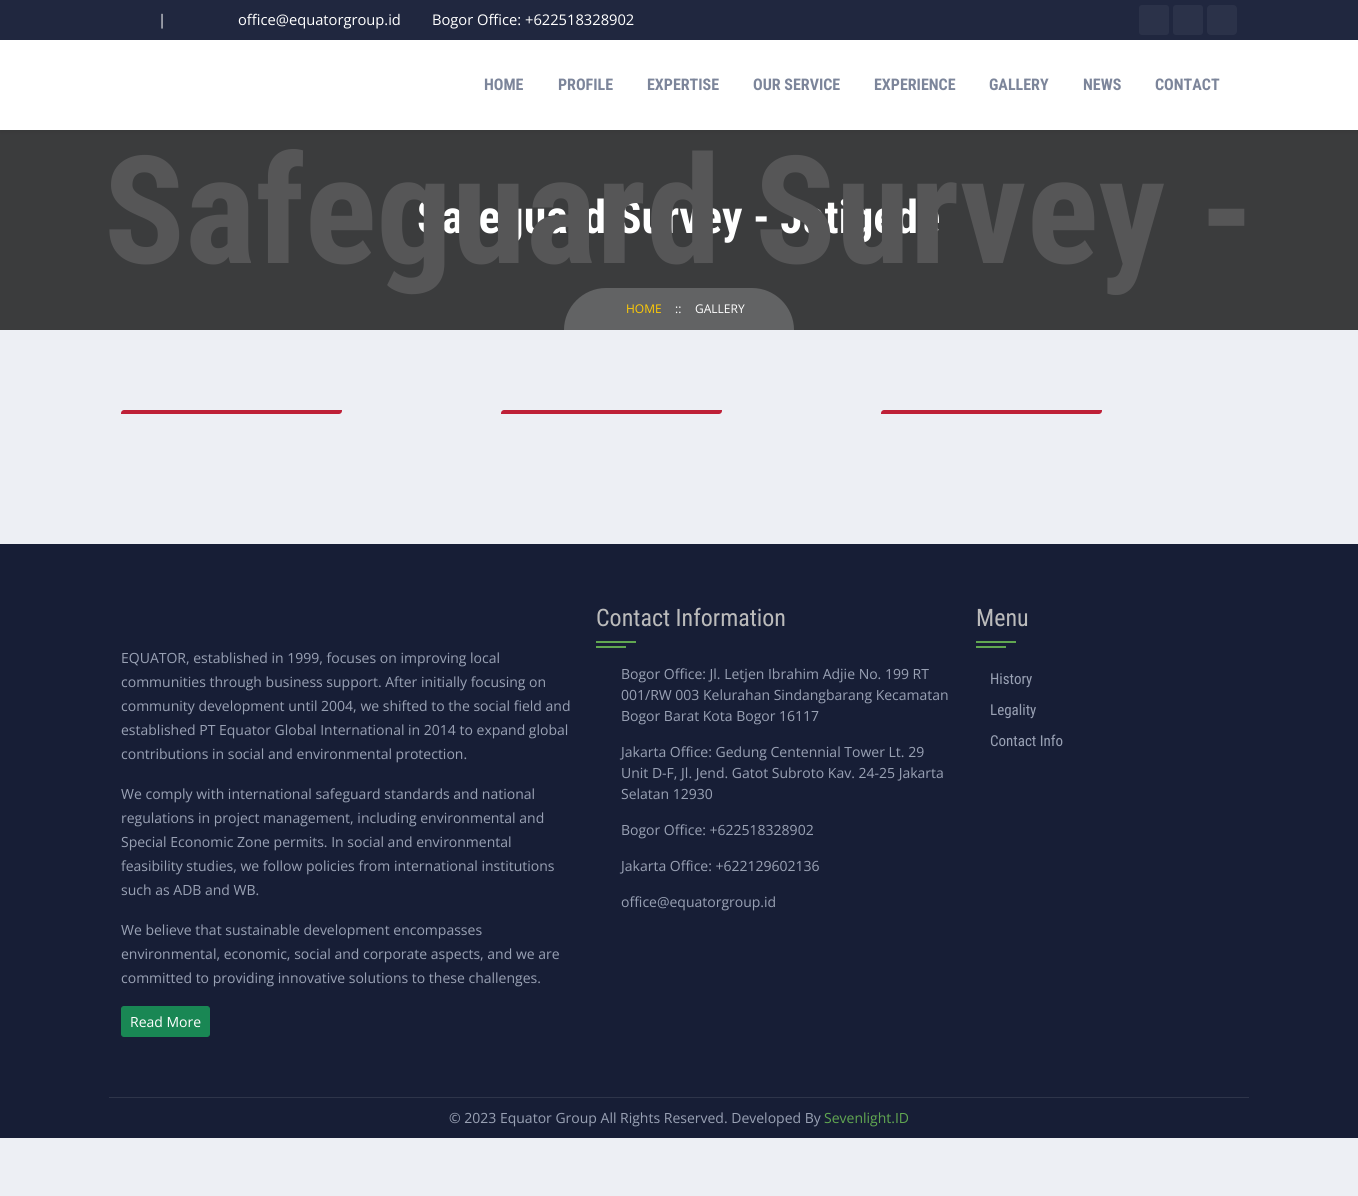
#include <cairo/cairo.h>
#include <math.h>
#include <stddef.h>


static void rounded_rect(cairo_t *cr, double x, double y, double w, double h, double r) {
  cairo_new_sub_path(cr);
  cairo_arc(cr, x + w - r, y + h - r, r, 0, M_PI / 2);
  cairo_arc(cr, x + r, y + h - r, r, M_PI / 2, M_PI);
  cairo_arc(cr, x + r, y + r, r, M_PI, 1.5 * M_PI);
  cairo_arc(cr, x + w - r, y + r, r, 1.5 * M_PI, 2 * M_PI);
  cairo_close_path(cr);
}

static void draw_shadow(cairo_t *cr, double x, double y, double w, double h, double r, double blur, double alpha) {
  cairo_push_group_with_content(cr, CAIRO_CONTENT_ALPHA);
  cairo_set_operator(cr, CAIRO_OPERATOR_SOURCE);
  for (int i = 15; i >= -15 && fmin(w, h) + blur * i / 3 > 0; i -= 2) {
    double e = blur * i / 6;
    cairo_set_source_rgba(cr, 0, 0, 0, alpha * erfc((i - 1) / 8.5) / 2);
    rounded_rect(cr, x - e, y - e, w + 2 * e, h + 2 * e, fmax(0, fmin(r + e + blur * .6, fmin(w, h) / 2 + e)));
    cairo_fill(cr);
  }
  cairo_pattern_t *soft = cairo_pop_group(cr);
  cairo_mask(cr, soft);
  cairo_pattern_destroy(soft);
}

static void draw(cairo_t *cr) {
  cairo_set_source_rgb(cr, 237 / 255.0, 239 / 255.0, 244 / 255.0);
  cairo_paint(cr);
  cairo_set_source_rgb(cr, 32 / 255.0, 39 / 255.0, 63 / 255.0);
  cairo_rectangle(cr, 0, 0, 1358, 40);
  cairo_fill(cr);
  cairo_set_source_rgb(cr, 43 / 255.0, 50 / 255.0, 73 / 255.0);
  rounded_rect(cr, 1139, 5, 30, 30, 3);
  cairo_fill(cr);
  rounded_rect(cr, 1173, 5, 30, 30, 3);
  cairo_fill(cr);
  rounded_rect(cr, 1207, 5, 30, 30, 4);
  cairo_fill(cr);
  cairo_set_source_rgb(cr, 0, 0, 0);
  draw_shadow(cr, 0, 42, 1358, 90, 0, 2, 0.07);
  cairo_set_source_rgb(cr, 1, 1, 1);
  cairo_rectangle(cr, 0, 40, 1358, 90);
  cairo_fill(cr);
  cairo_set_source_rgba(cr, 0, 0, 0, 0.75);
  cairo_rectangle(cr, 0, 130, 1358, 200);
  cairo_fill(cr);
  cairo_set_source_rgb(cr, 190 / 255.0, 32 / 255.0, 55 / 255.0);
  cairo_new_path(cr);
  cairo_move_to(cr, 124, 410);
  cairo_line_to(cr, 342, 410);
  cairo_line_to(cr, 342, 411);
  cairo_curve_to(cr, 342, 412.5, 340.5, 414, 339, 414);
  cairo_line_to(cr, 121, 414);
  cairo_line_to(cr, 121, 413);
  cairo_curve_to(cr, 121, 411.5, 122.5, 410, 124, 410);
  cairo_close_path(cr);
  cairo_fill(cr);
  cairo_new_path(cr);
  cairo_move_to(cr, 504, 410);
  cairo_line_to(cr, 722, 410);
  cairo_line_to(cr, 722, 411);
  cairo_curve_to(cr, 722, 412.5, 720.5, 414, 719, 414);
  cairo_line_to(cr, 501, 414);
  cairo_line_to(cr, 501, 413);
  cairo_curve_to(cr, 501, 411.5, 502.5, 410, 504, 410);
  cairo_close_path(cr);
  cairo_fill(cr);
  cairo_new_path(cr);
  cairo_move_to(cr, 884, 410);
  cairo_line_to(cr, 1102, 410);
  cairo_line_to(cr, 1102, 411);
  cairo_curve_to(cr, 1102, 412.5, 1100.5, 414, 1099, 414);
  cairo_line_to(cr, 881, 414);
  cairo_line_to(cr, 881, 413);
  cairo_curve_to(cr, 881, 411.5, 882.5, 410, 884, 410);
  cairo_close_path(cr);
  cairo_fill(cr);
  cairo_set_source_rgb(cr, 23 / 255.0, 30 / 255.0, 54 / 255.0);
  cairo_rectangle(cr, 0, 544, 1358, 594);
  cairo_fill(cr);
  cairo_set_source_rgb(cr, 25 / 255.0, 135 / 255.0, 84 / 255.0);
  rounded_rect(cr, 121.5, 1006.5, 88, 30, 2.5);
  cairo_fill_preserve(cr);
  cairo_set_line_width(cr, 1);
  cairo_stroke(cr);
  cairo_set_source_rgb(cr, 97 / 255.0, 167 / 255.0, 81 / 255.0);
  cairo_rectangle(cr, 596, 641, 40, 2);
  cairo_fill(cr);
  cairo_rectangle(cr, 596, 646, 30, 2);
  cairo_fill(cr);
  cairo_rectangle(cr, 976, 641, 40, 2);
  cairo_fill(cr);
  cairo_rectangle(cr, 976, 646, 30, 2);
  cairo_fill(cr);
  cairo_set_source_rgb(cr, 46 / 255.0, 53 / 255.0, 74 / 255.0);
  cairo_rectangle(cr, 109, 1097, 1140, 1);
  cairo_fill(cr);
  cairo_select_font_face(cr, "Open Sans", CAIRO_FONT_SLANT_NORMAL, CAIRO_FONT_WEIGHT_NORMAL);
  cairo_set_font_size(cr, 14.7);
  cairo_set_source_rgb(cr, 1, 1, 1);
  cairo_move_to(cr, 158, 25);
  cairo_show_text(cr, "|");
  cairo_move_to(cr, 238, 25);
  cairo_show_text(cr, "office@equatorgroup.id");
  cairo_move_to(cr, 432, 25);
  cairo_show_text(cr, "Bogor Office: +622518328902");
  cairo_select_font_face(cr, "Roboto Condensed", CAIRO_FONT_SLANT_NORMAL, CAIRO_FONT_WEIGHT_BOLD);
  cairo_set_font_size(cr, 16);
  cairo_set_source_rgb(cr, 124 / 255.0, 133 / 255.0, 154 / 255.0);
  cairo_move_to(cr, 484, 90);
  cairo_show_text(cr, "HOME");
  cairo_move_to(cr, 558, 90);
  cairo_show_text(cr, "PROFILE");
  cairo_move_to(cr, 647, 90);
  cairo_show_text(cr, "EXPERTISE");
  cairo_move_to(cr, 753, 90);
  cairo_show_text(cr, "OUR SERVICE");
  cairo_move_to(cr, 874, 90);
  cairo_show_text(cr, "EXPERIENCE");
  cairo_move_to(cr, 989, 90);
  cairo_show_text(cr, "GALLERY");
  cairo_move_to(cr, 1083, 90);
  cairo_show_text(cr, "NEWS");
  cairo_move_to(cr, 1155, 90);
  cairo_show_text(cr, "CONTACT");
  cairo_set_font_size(cr, 46);
  cairo_set_source_rgb(cr, 1, 1, 1);
  cairo_move_to(cr, 417, 233);
  cairo_show_text(cr, "Safeguard Survey - Jatigede");
  cairo_set_font_size(cr, 150);
  cairo_set_source_rgb(cr, 86 / 255.0, 86 / 255.0, 87 / 255.0);
  cairo_move_to(cr, 104, 263);
  cairo_show_text(cr, "Safeguard Survey -");
  cairo_set_source_rgb(cr, 98 / 255.0, 99 / 255.0, 100 / 255.0);
  cairo_new_path(cr);
  cairo_move_to(cr, 606, 288);
  cairo_line_to(cr, 752, 288);
  cairo_curve_to(cr, 775, 288, 794, 307, 794, 330);
  cairo_line_to(cr, 564, 330);
  cairo_curve_to(cr, 564, 307, 583, 288, 606, 288);
  cairo_close_path(cr);
  cairo_fill(cr);
  cairo_select_font_face(cr, "Open Sans", CAIRO_FONT_SLANT_NORMAL, CAIRO_FONT_WEIGHT_NORMAL);
  cairo_set_font_size(cr, 12);
  cairo_set_source_rgb(cr, 1, 203 / 255.0, 5 / 255.0);
  cairo_move_to(cr, 626, 313);
  cairo_show_text(cr, "HOME");
  cairo_set_source_rgb(cr, 1, 1, 1);
  cairo_move_to(cr, 675, 313);
  cairo_show_text(cr, "::");
  cairo_move_to(cr, 695, 313);
  cairo_show_text(cr, "GALLERY");
  cairo_set_font_size(cr, 14);
  cairo_set_source_rgb(cr, 153 / 255.0, 161 / 255.0, 180 / 255.0);
  cairo_move_to(cr, 121, 663);
  cairo_show_text(cr, "EQUATOR, established in 1999, focuses on improving local");
  cairo_move_to(cr, 121, 687);
  cairo_show_text(cr, "communities through business support. After initially focusing on");
  cairo_move_to(cr, 121, 711);
  cairo_show_text(cr, "community development until 2004, we shifted to the social field and");
  cairo_move_to(cr, 121, 735);
  cairo_show_text(cr, "established PT Equator Global International in 2014 to expand global");
  cairo_move_to(cr, 121, 759);
  cairo_show_text(cr, "contributions in social and environmental protection.");
  cairo_move_to(cr, 121, 799);
  cairo_show_text(cr, "We comply with international safeguard standards and national");
  cairo_move_to(cr, 121, 823);
  cairo_show_text(cr, "regulations in project management, including environmental and");
  cairo_move_to(cr, 121, 847);
  cairo_show_text(cr, "Special Economic Zone permits. In social and environmental");
  cairo_move_to(cr, 121, 871);
  cairo_show_text(cr, "feasibility studies, we follow policies from international institutions");
  cairo_move_to(cr, 121, 895);
  cairo_show_text(cr, "such as ADB and WB.");
  cairo_move_to(cr, 121, 935);
  cairo_show_text(cr, "We believe that sustainable development encompasses");
  cairo_move_to(cr, 121, 959);
  cairo_show_text(cr, "environmental, economic, social and corporate aspects, and we are");
  cairo_move_to(cr, 121, 983);
  cairo_show_text(cr, "committed to providing innovative solutions to these challenges.");
  cairo_set_source_rgb(cr, 1, 1, 1);
  cairo_move_to(cr, 130, 1027);
  cairo_show_text(cr, "Read More");
  cairo_select_font_face(cr, "Roboto Condensed", CAIRO_FONT_SLANT_NORMAL, CAIRO_FONT_WEIGHT_NORMAL);
  cairo_set_font_size(cr, 24);
  cairo_set_source_rgb(cr, 187 / 255.0, 187 / 255.0, 187 / 255.0);
  cairo_move_to(cr, 596, 626);
  cairo_show_text(cr, "Contact Information");
  cairo_select_font_face(cr, "Open Sans", CAIRO_FONT_SLANT_NORMAL, CAIRO_FONT_WEIGHT_NORMAL);
  cairo_set_font_size(cr, 14);
  cairo_set_source_rgb(cr, 153 / 255.0, 161 / 255.0, 180 / 255.0);
  cairo_move_to(cr, 621, 679);
  cairo_show_text(cr, "Bogor Office: Jl. Letjen Ibrahim Adjie No. 199 RT");
  cairo_move_to(cr, 621, 700);
  cairo_show_text(cr, "001/RW 003 Kelurahan Sindangbarang Kecamatan");
  cairo_move_to(cr, 621, 721);
  cairo_show_text(cr, "Bogor Barat Kota Bogor 16117");
  cairo_move_to(cr, 621, 757);
  cairo_show_text(cr, "Jakarta Office: Gedung Centennial Tower Lt. 29");
  cairo_move_to(cr, 621, 778);
  cairo_show_text(cr, "Unit D-F, Jl. Jend. Gatot Subroto Kav. 24-25 Jakarta");
  cairo_move_to(cr, 621, 799);
  cairo_show_text(cr, "Selatan 12930");
  cairo_move_to(cr, 621, 835);
  cairo_show_text(cr, "Bogor Office: +622518328902");
  cairo_move_to(cr, 621, 871);
  cairo_show_text(cr, "Jakarta Office: +622129602136");
  cairo_move_to(cr, 621, 907);
  cairo_show_text(cr, "office@equatorgroup.id");
  cairo_select_font_face(cr, "Roboto Condensed", CAIRO_FONT_SLANT_NORMAL, CAIRO_FONT_WEIGHT_NORMAL);
  cairo_set_font_size(cr, 24);
  cairo_set_source_rgb(cr, 187 / 255.0, 187 / 255.0, 187 / 255.0);
  cairo_move_to(cr, 976, 626);
  cairo_show_text(cr, "Menu");
  cairo_set_font_size(cr, 15);
  cairo_set_source_rgb(cr, 153 / 255.0, 161 / 255.0, 180 / 255.0);
  cairo_move_to(cr, 990, 684);
  cairo_show_text(cr, "History");
  cairo_move_to(cr, 990, 715);
  cairo_show_text(cr, "Legality");
  cairo_move_to(cr, 990, 746);
  cairo_show_text(cr, "Contact Info");
  cairo_select_font_face(cr, "Open Sans", CAIRO_FONT_SLANT_NORMAL, CAIRO_FONT_WEIGHT_NORMAL);
  cairo_set_font_size(cr, 14);
  cairo_move_to(cr, 449, 1123);
  cairo_show_text(cr, "© 2023 Equator Group All Rights Reserved. Developed By");
  cairo_set_source_rgb(cr, 97 / 255.0, 167 / 255.0, 81 / 255.0);
  cairo_move_to(cr, 824, 1123);
  cairo_show_text(cr, "Sevenlight.ID");
}

int main(void) {
  cairo_surface_t *surface = cairo_image_surface_create(CAIRO_FORMAT_RGB24, 1358, 1196);
  cairo_t *cr = cairo_create(surface);
  cairo_font_options_t *options = cairo_font_options_create();
  cairo_font_options_set_hint_metrics(options, CAIRO_HINT_METRICS_OFF);
  cairo_font_options_set_hint_style(options, CAIRO_HINT_STYLE_NONE);
  cairo_set_font_options(cr, options);
  cairo_set_miter_limit(cr, 4);
  draw(cr);
  cairo_surface_write_to_png(surface, "out.png");
  cairo_font_options_destroy(options);
  cairo_destroy(cr);
  cairo_surface_destroy(surface);
  return 0;
}
